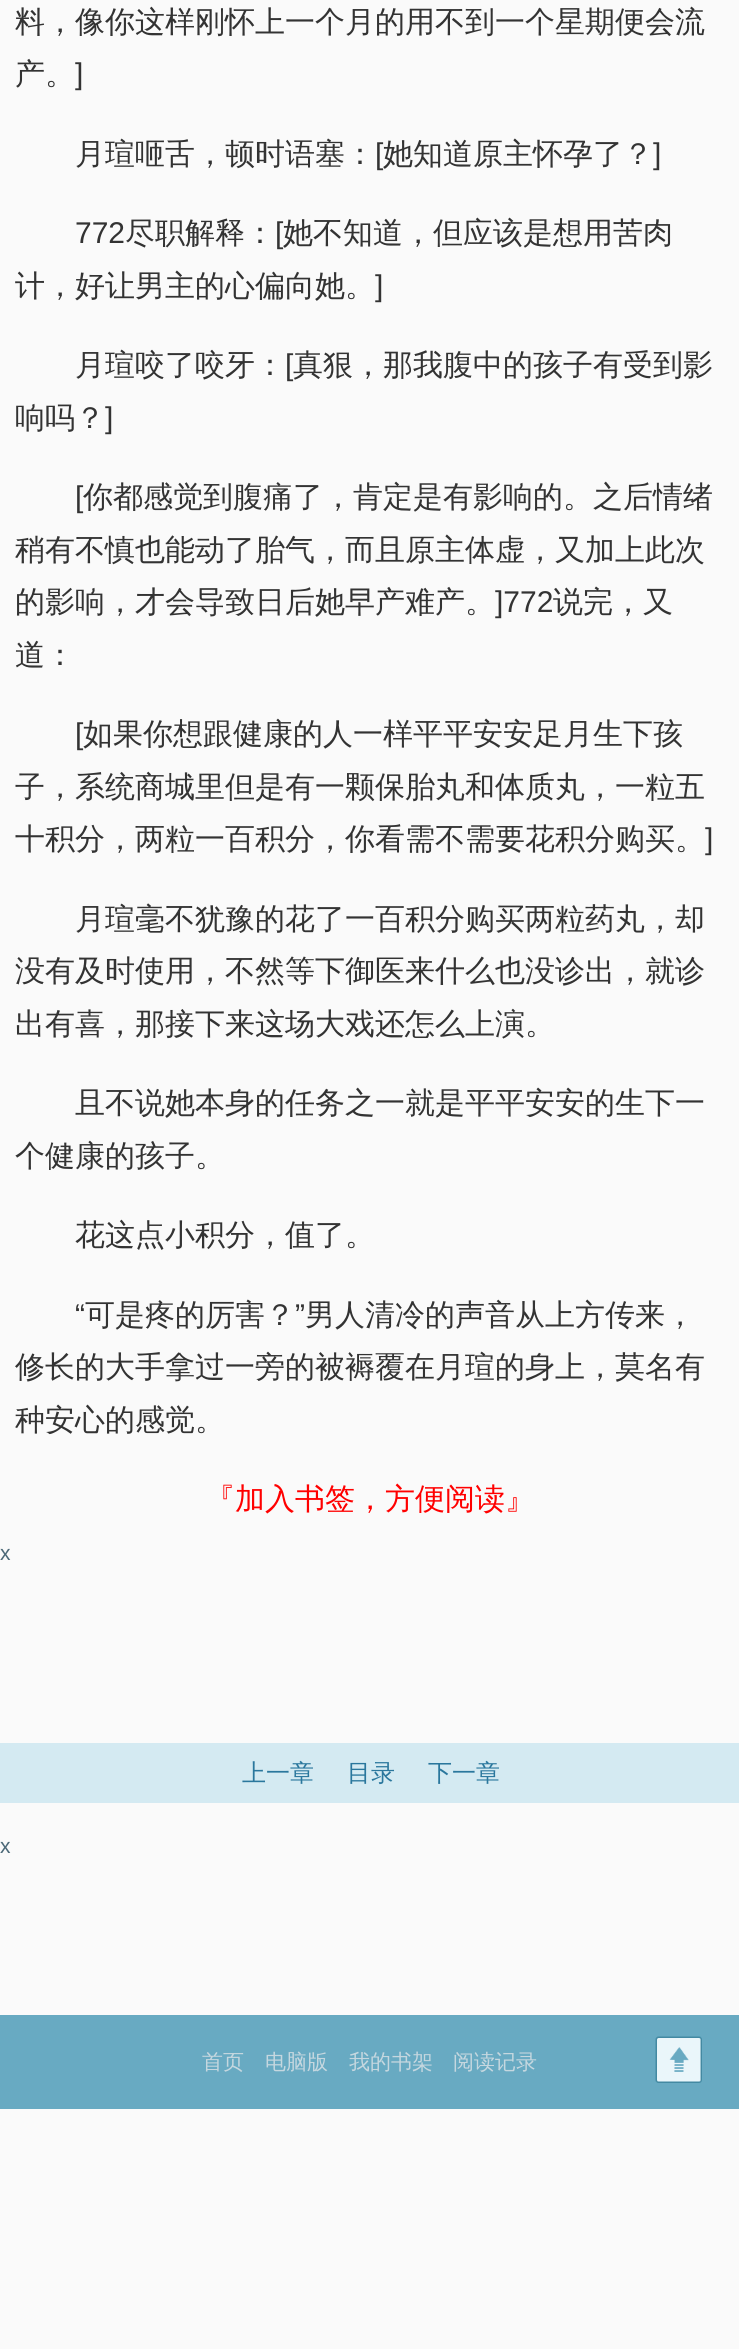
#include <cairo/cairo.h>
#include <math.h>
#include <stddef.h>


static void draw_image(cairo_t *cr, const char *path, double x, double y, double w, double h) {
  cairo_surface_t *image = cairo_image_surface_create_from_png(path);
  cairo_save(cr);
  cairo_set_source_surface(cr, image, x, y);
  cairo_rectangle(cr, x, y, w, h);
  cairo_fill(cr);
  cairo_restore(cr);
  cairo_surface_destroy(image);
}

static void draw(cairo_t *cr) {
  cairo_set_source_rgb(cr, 250 / 255.0, 250 / 255.0, 250 / 255.0);
  cairo_paint(cr);
  cairo_set_source_rgb(cr, 212 / 255.0, 234 / 255.0, 242 / 255.0);
  cairo_rectangle(cr, 0, 1743, 739, 60);
  cairo_fill(cr);
  cairo_set_source_rgb(cr, 104 / 255.0, 170 / 255.0, 194 / 255.0);
  cairo_rectangle(cr, 0, 2015, 739, 94);
  cairo_fill(cr);
  draw_image(cr, "images/1.png", 655, 2036, 47, 47);
  cairo_select_font_face(cr, "WenQuanYi Zen Hei Medium", CAIRO_FONT_SLANT_NORMAL, CAIRO_FONT_WEIGHT_NORMAL);
  cairo_set_font_size(cr, 30);
  cairo_set_source_rgb(cr, 51 / 255.0, 51 / 255.0, 51 / 255.0);
  cairo_move_to(cr, 15, 32);
  cairo_show_text(cr, "料，像你这样刚怀上一个月的用不到一个星期便会流");
  cairo_move_to(cr, 15, 84);
  cairo_show_text(cr, "产。");
  cairo_select_font_face(cr, "Liberation Sans", CAIRO_FONT_SLANT_NORMAL, CAIRO_FONT_WEIGHT_NORMAL);
  cairo_move_to(cr, 75, 84);
  cairo_show_text(cr, "]");
  cairo_select_font_face(cr, "WenQuanYi Zen Hei Medium", CAIRO_FONT_SLANT_NORMAL, CAIRO_FONT_WEIGHT_NORMAL);
  cairo_move_to(cr, 75, 164);
  cairo_show_text(cr, "月瑄咂舌，顿时语塞：");
  cairo_select_font_face(cr, "Liberation Sans", CAIRO_FONT_SLANT_NORMAL, CAIRO_FONT_WEIGHT_NORMAL);
  cairo_move_to(cr, 375, 164);
  cairo_show_text(cr, "[");
  cairo_select_font_face(cr, "WenQuanYi Zen Hei Medium", CAIRO_FONT_SLANT_NORMAL, CAIRO_FONT_WEIGHT_NORMAL);
  cairo_move_to(cr, 383, 164);
  cairo_show_text(cr, "她知道原主怀孕了？");
  cairo_select_font_face(cr, "Liberation Sans", CAIRO_FONT_SLANT_NORMAL, CAIRO_FONT_WEIGHT_NORMAL);
  cairo_move_to(cr, 653, 164);
  cairo_show_text(cr, "]");
  cairo_move_to(cr, 75, 243);
  cairo_show_text(cr, "772");
  cairo_select_font_face(cr, "WenQuanYi Zen Hei Medium", CAIRO_FONT_SLANT_NORMAL, CAIRO_FONT_WEIGHT_NORMAL);
  cairo_move_to(cr, 125, 243);
  cairo_show_text(cr, "尽职解释：");
  cairo_select_font_face(cr, "Liberation Sans", CAIRO_FONT_SLANT_NORMAL, CAIRO_FONT_WEIGHT_NORMAL);
  cairo_move_to(cr, 275, 243);
  cairo_show_text(cr, "[");
  cairo_select_font_face(cr, "WenQuanYi Zen Hei Medium", CAIRO_FONT_SLANT_NORMAL, CAIRO_FONT_WEIGHT_NORMAL);
  cairo_move_to(cr, 283, 243);
  cairo_show_text(cr, "她不知道，但应该是想用苦肉");
  cairo_move_to(cr, 15, 296);
  cairo_show_text(cr, "计，好让男主的心偏向她。");
  cairo_select_font_face(cr, "Liberation Sans", CAIRO_FONT_SLANT_NORMAL, CAIRO_FONT_WEIGHT_NORMAL);
  cairo_move_to(cr, 375, 296);
  cairo_show_text(cr, "]");
  cairo_select_font_face(cr, "WenQuanYi Zen Hei Medium", CAIRO_FONT_SLANT_NORMAL, CAIRO_FONT_WEIGHT_NORMAL);
  cairo_move_to(cr, 75, 375);
  cairo_show_text(cr, "月瑄咬了咬牙：");
  cairo_select_font_face(cr, "Liberation Sans", CAIRO_FONT_SLANT_NORMAL, CAIRO_FONT_WEIGHT_NORMAL);
  cairo_move_to(cr, 285, 375);
  cairo_show_text(cr, "[");
  cairo_select_font_face(cr, "WenQuanYi Zen Hei Medium", CAIRO_FONT_SLANT_NORMAL, CAIRO_FONT_WEIGHT_NORMAL);
  cairo_move_to(cr, 293, 375);
  cairo_show_text(cr, "真狠，那我腹中的孩子有受到影");
  cairo_move_to(cr, 15, 428);
  cairo_show_text(cr, "响吗？");
  cairo_select_font_face(cr, "Liberation Sans", CAIRO_FONT_SLANT_NORMAL, CAIRO_FONT_WEIGHT_NORMAL);
  cairo_move_to(cr, 105, 428);
  cairo_show_text(cr, "]");
  cairo_move_to(cr, 75, 507);
  cairo_show_text(cr, "[");
  cairo_select_font_face(cr, "WenQuanYi Zen Hei Medium", CAIRO_FONT_SLANT_NORMAL, CAIRO_FONT_WEIGHT_NORMAL);
  cairo_move_to(cr, 83, 507);
  cairo_show_text(cr, "你都感觉到腹痛了，肯定是有影响的。之后情绪");
  cairo_move_to(cr, 15, 560);
  cairo_show_text(cr, "稍有不慎也能动了胎气，而且原主体虚，又加上此次");
  cairo_move_to(cr, 15, 612);
  cairo_show_text(cr, "的影响，才会导致日后她早产难产。");
  cairo_select_font_face(cr, "Liberation Sans", CAIRO_FONT_SLANT_NORMAL, CAIRO_FONT_WEIGHT_NORMAL);
  cairo_move_to(cr, 495, 612);
  cairo_show_text(cr, "]772");
  cairo_select_font_face(cr, "WenQuanYi Zen Hei Medium", CAIRO_FONT_SLANT_NORMAL, CAIRO_FONT_WEIGHT_NORMAL);
  cairo_move_to(cr, 553, 612);
  cairo_show_text(cr, "说完，又");
  cairo_move_to(cr, 15, 665);
  cairo_show_text(cr, "道：");
  cairo_select_font_face(cr, "Liberation Sans", CAIRO_FONT_SLANT_NORMAL, CAIRO_FONT_WEIGHT_NORMAL);
  cairo_move_to(cr, 75, 744);
  cairo_show_text(cr, "[");
  cairo_select_font_face(cr, "WenQuanYi Zen Hei Medium", CAIRO_FONT_SLANT_NORMAL, CAIRO_FONT_WEIGHT_NORMAL);
  cairo_move_to(cr, 83, 744);
  cairo_show_text(cr, "如果你想跟健康的人一样平平安安足月生下孩");
  cairo_move_to(cr, 15, 797);
  cairo_show_text(cr, "子，系统商城里但是有一颗保胎丸和体质丸，一粒五");
  cairo_move_to(cr, 15, 849);
  cairo_show_text(cr, "十积分，两粒一百积分，你看需不需要花积分购买。");
  cairo_select_font_face(cr, "Liberation Sans", CAIRO_FONT_SLANT_NORMAL, CAIRO_FONT_WEIGHT_NORMAL);
  cairo_move_to(cr, 705, 849);
  cairo_show_text(cr, "]");
  cairo_select_font_face(cr, "WenQuanYi Zen Hei Medium", CAIRO_FONT_SLANT_NORMAL, CAIRO_FONT_WEIGHT_NORMAL);
  cairo_move_to(cr, 75, 929);
  cairo_show_text(cr, "月瑄毫不犹豫的花了一百积分购买两粒药丸，却");
  cairo_move_to(cr, 15, 981);
  cairo_show_text(cr, "没有及时使用，不然等下御医来什么也没诊出，就诊");
  cairo_move_to(cr, 15, 1034);
  cairo_show_text(cr, "出有喜，那接下来这场大戏还怎么上演。");
  cairo_move_to(cr, 75, 1113);
  cairo_show_text(cr, "且不说她本身的任务之一就是平平安安的生下一");
  cairo_move_to(cr, 15, 1166);
  cairo_show_text(cr, "个健康的孩子。");
  cairo_move_to(cr, 75, 1245);
  cairo_show_text(cr, "花这点小积分，值了。");
  cairo_select_font_face(cr, "Liberation Sans", CAIRO_FONT_SLANT_NORMAL, CAIRO_FONT_WEIGHT_NORMAL);
  cairo_move_to(cr, 75, 1325);
  cairo_show_text(cr, "“");
  cairo_select_font_face(cr, "WenQuanYi Zen Hei Medium", CAIRO_FONT_SLANT_NORMAL, CAIRO_FONT_WEIGHT_NORMAL);
  cairo_move_to(cr, 85, 1325);
  cairo_show_text(cr, "可是疼的厉害？");
  cairo_select_font_face(cr, "Liberation Sans", CAIRO_FONT_SLANT_NORMAL, CAIRO_FONT_WEIGHT_NORMAL);
  cairo_move_to(cr, 295, 1325);
  cairo_show_text(cr, "”");
  cairo_select_font_face(cr, "WenQuanYi Zen Hei Medium", CAIRO_FONT_SLANT_NORMAL, CAIRO_FONT_WEIGHT_NORMAL);
  cairo_move_to(cr, 305, 1325);
  cairo_show_text(cr, "男人清冷的声音从上方传来，");
  cairo_move_to(cr, 15, 1377);
  cairo_show_text(cr, "修长的大手拿过一旁的被褥覆在月瑄的身上，莫名有");
  cairo_move_to(cr, 15, 1430);
  cairo_show_text(cr, "种安心的感觉。");
  cairo_set_source_rgb(cr, 1, 0, 0);
  cairo_move_to(cr, 205, 1509);
  cairo_show_text(cr, "『加入书签，方便阅读』");
  cairo_select_font_face(cr, "Liberation Sans", CAIRO_FONT_SLANT_NORMAL, CAIRO_FONT_WEIGHT_NORMAL);
  cairo_set_font_size(cr, 21);
  cairo_set_source_rgb(cr, 76 / 255.0, 105 / 255.0, 120 / 255.0);
  cairo_move_to(cr, 0, 1560);
  cairo_show_text(cr, "x");
  cairo_select_font_face(cr, "WenQuanYi Zen Hei Medium", CAIRO_FONT_SLANT_NORMAL, CAIRO_FONT_WEIGHT_NORMAL);
  cairo_set_font_size(cr, 24);
  cairo_set_source_rgb(cr, 42 / 255.0, 119 / 255.0, 157 / 255.0);
  cairo_move_to(cr, 242, 1781);
  cairo_show_text(cr, "上一章");
  cairo_move_to(cr, 347, 1781);
  cairo_show_text(cr, "目录");
  cairo_move_to(cr, 428, 1781);
  cairo_show_text(cr, "下一章");
  cairo_select_font_face(cr, "Liberation Sans", CAIRO_FONT_SLANT_NORMAL, CAIRO_FONT_WEIGHT_NORMAL);
  cairo_set_font_size(cr, 21);
  cairo_set_source_rgb(cr, 76 / 255.0, 105 / 255.0, 120 / 255.0);
  cairo_move_to(cr, 0, 1853);
  cairo_show_text(cr, "x");
  cairo_select_font_face(cr, "WenQuanYi Zen Hei Medium", CAIRO_FONT_SLANT_NORMAL, CAIRO_FONT_WEIGHT_NORMAL);
  cairo_set_source_rgb(cr, 197 / 255.0, 215 / 255.0, 223 / 255.0);
  cairo_move_to(cr, 202, 2069);
  cairo_show_text(cr, "首页");
  cairo_move_to(cr, 265, 2069);
  cairo_show_text(cr, "电脑版");
  cairo_move_to(cr, 349, 2069);
  cairo_show_text(cr, "我的书架");
  cairo_move_to(cr, 453, 2069);
  cairo_show_text(cr, "阅读记录");
}

int main(void) {
  cairo_surface_t *surface = cairo_image_surface_create(CAIRO_FORMAT_RGB24, 739, 2349);
  cairo_t *cr = cairo_create(surface);
  cairo_font_options_t *options = cairo_font_options_create();
  cairo_font_options_set_hint_metrics(options, CAIRO_HINT_METRICS_OFF);
  cairo_font_options_set_hint_style(options, CAIRO_HINT_STYLE_NONE);
  cairo_set_font_options(cr, options);
  cairo_set_miter_limit(cr, 4);
  draw(cr);
  cairo_surface_write_to_png(surface, "out.png");
  cairo_font_options_destroy(options);
  cairo_destroy(cr);
  cairo_surface_destroy(surface);
  return 0;
}
